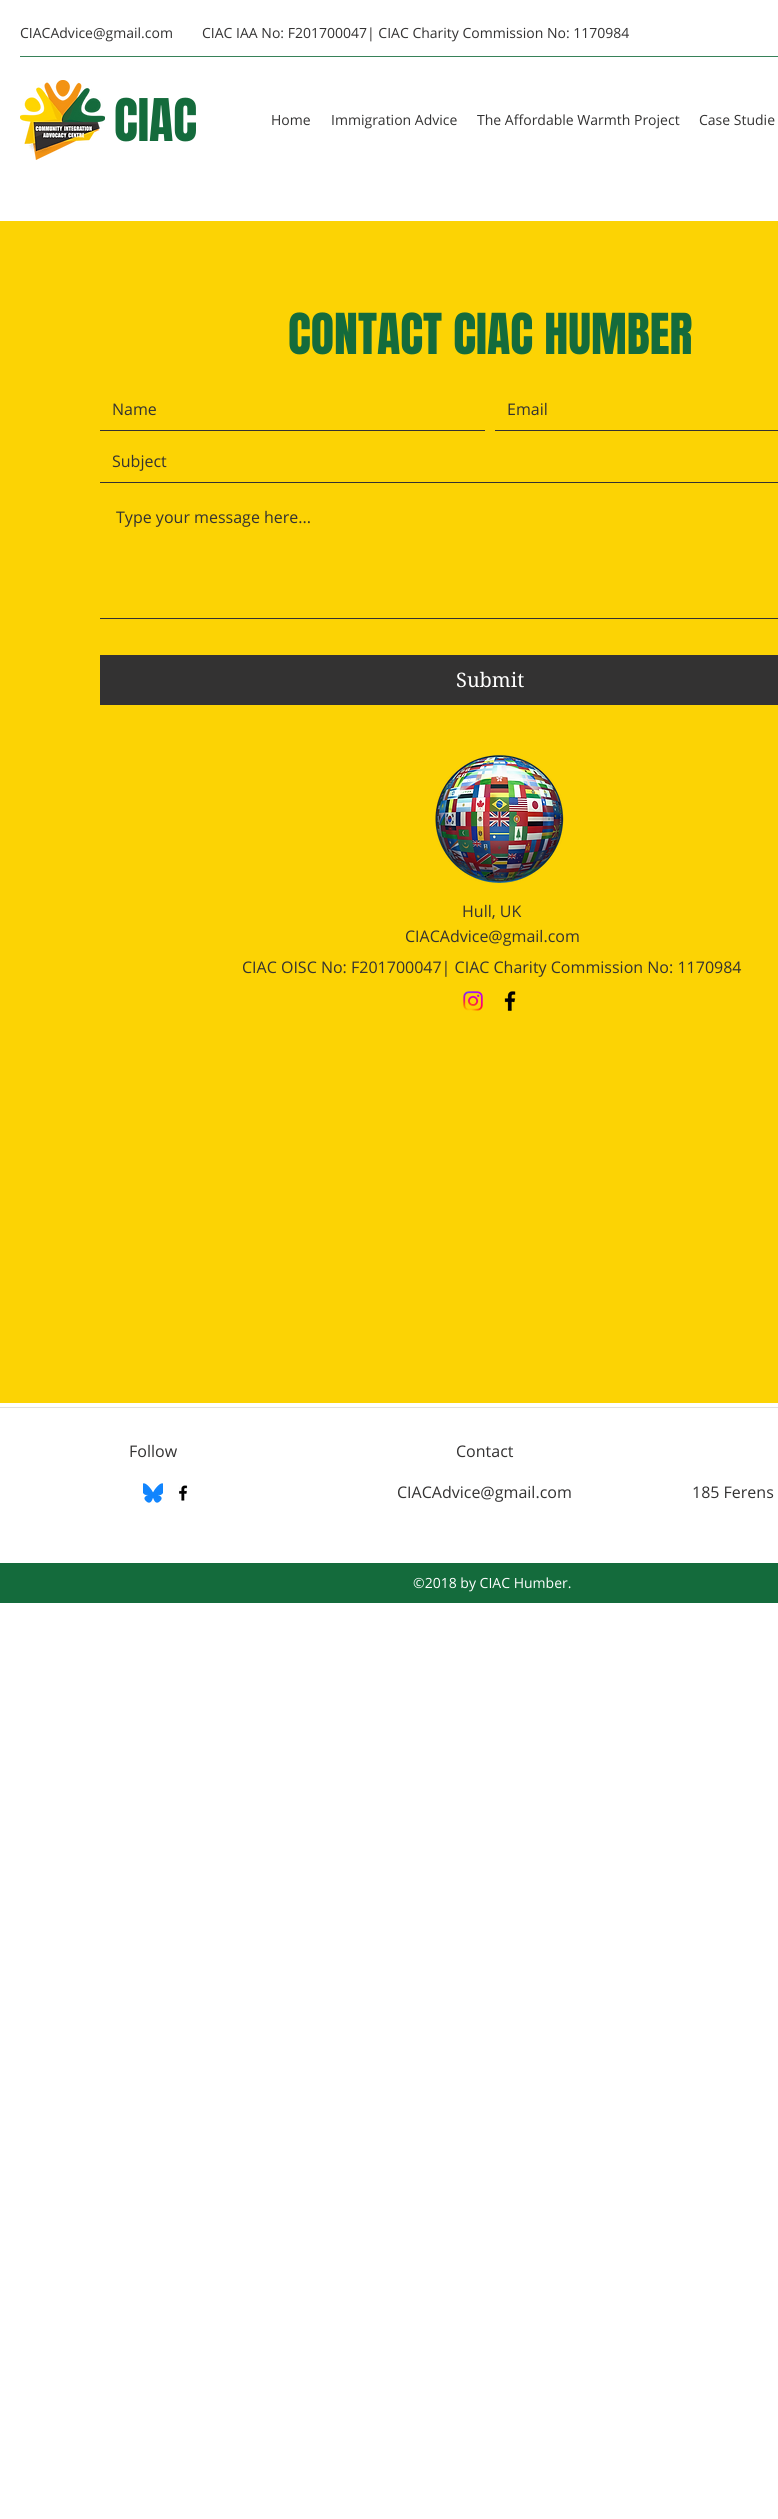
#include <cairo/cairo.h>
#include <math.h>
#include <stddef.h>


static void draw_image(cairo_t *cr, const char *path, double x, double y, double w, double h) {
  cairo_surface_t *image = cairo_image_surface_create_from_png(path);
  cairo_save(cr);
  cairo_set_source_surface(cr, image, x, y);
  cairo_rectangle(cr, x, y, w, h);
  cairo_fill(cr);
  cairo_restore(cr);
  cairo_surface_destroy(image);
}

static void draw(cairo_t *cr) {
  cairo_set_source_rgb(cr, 1, 1, 1);
  cairo_paint(cr);
  cairo_set_source_rgb(cr, 55 / 255.0, 129 / 255.0, 89 / 255.0);
  cairo_rectangle(cr, 20, 56, 758, 1);
  cairo_fill(cr);
  draw_image(cr, "images/1.png", 20, 80, 85, 80);
  cairo_set_source_rgb(cr, 252 / 255.0, 211 / 255.0, 4 / 255.0);
  cairo_rectangle(cr, 0, 221, 778, 1182);
  cairo_fill(cr);
  cairo_set_source_rgb(cr, 51 / 255.0, 50 / 255.0, 50 / 255.0);
  cairo_rectangle(cr, 100, 430, 385, 1);
  cairo_fill(cr);
  cairo_rectangle(cr, 495, 430, 283, 1);
  cairo_fill(cr);
  cairo_rectangle(cr, 100, 482, 678, 1);
  cairo_fill(cr);
  cairo_rectangle(cr, 100, 618, 678, 1);
  cairo_fill(cr);
  cairo_rectangle(cr, 100, 655, 678, 50);
  cairo_fill(cr);
  draw_image(cr, "images/2.png", 435, 755, 129, 128);
  draw_image(cr, "images/3.png", 463, 991, 20, 20);
  draw_image(cr, "images/4.png", 504, 991, 12, 20);
  cairo_set_source_rgb(cr, 224 / 255.0, 224 / 255.0, 224 / 255.0);
  cairo_rectangle(cr, 0, 1407, 778, 1);
  cairo_fill(cr);
  draw_image(cr, "images/5.png", 143, 1483, 20, 20);
  draw_image(cr, "images/6.png", 179, 1485, 9, 16);
  cairo_set_source_rgb(cr, 20 / 255.0, 107 / 255.0, 60 / 255.0);
  cairo_rectangle(cr, 0, 1563, 778, 40);
  cairo_fill(cr);
  cairo_select_font_face(cr, "Open Sans", CAIRO_FONT_SLANT_NORMAL, CAIRO_FONT_WEIGHT_NORMAL);
  cairo_set_font_size(cr, 14);
  cairo_set_source_rgb(cr, 51 / 255.0, 50 / 255.0, 50 / 255.0);
  cairo_move_to(cr, 20, 38);
  cairo_show_text(cr, "CIACAdvice@gmail.com");
  cairo_move_to(cr, 202, 38);
  cairo_show_text(cr, "CIAC IAA No: F201700047| CIAC Charity Commission No: 1170984");
  cairo_select_font_face(cr, "Anton", CAIRO_FONT_SLANT_NORMAL, CAIRO_FONT_WEIGHT_NORMAL);
  cairo_set_font_size(cr, 50);
  cairo_set_source_rgb(cr, 20 / 255.0, 107 / 255.0, 60 / 255.0);
  cairo_move_to(cr, 114, 141);
  cairo_show_text(cr, "CIAC");
  cairo_select_font_face(cr, "Open Sans", CAIRO_FONT_SLANT_NORMAL, CAIRO_FONT_WEIGHT_NORMAL);
  cairo_set_font_size(cr, 14);
  cairo_set_source_rgb(cr, 51 / 255.0, 50 / 255.0, 50 / 255.0);
  cairo_move_to(cr, 271, 125);
  cairo_show_text(cr, "Home");
  cairo_move_to(cr, 331, 125);
  cairo_show_text(cr, "Immigration Advice");
  cairo_move_to(cr, 477, 125);
  cairo_show_text(cr, "The Affordable Warmth Project");
  cairo_move_to(cr, 699, 125);
  cairo_show_text(cr, "Case Studie");
  cairo_select_font_face(cr, "Anton", CAIRO_FONT_SLANT_NORMAL, CAIRO_FONT_WEIGHT_NORMAL);
  cairo_set_font_size(cr, 48);
  cairo_set_source_rgb(cr, 20 / 255.0, 107 / 255.0, 60 / 255.0);
  cairo_move_to(cr, 288, 354);
  cairo_show_text(cr, "CONTACT CIAC HUMBER");
  cairo_select_font_face(cr, "Open Sans", CAIRO_FONT_SLANT_NORMAL, CAIRO_FONT_WEIGHT_NORMAL);
  cairo_set_font_size(cr, 16);
  cairo_set_source_rgb(cr, 51 / 255.0, 50 / 255.0, 50 / 255.0);
  cairo_move_to(cr, 112, 415);
  cairo_show_text(cr, "Name");
  cairo_move_to(cr, 507, 415);
  cairo_show_text(cr, "Email");
  cairo_move_to(cr, 112, 467);
  cairo_show_text(cr, "Subject");
  cairo_move_to(cr, 116, 523);
  cairo_show_text(cr, "Type your message here...");
  cairo_select_font_face(cr, "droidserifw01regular", CAIRO_FONT_SLANT_NORMAL, CAIRO_FONT_WEIGHT_NORMAL);
  cairo_set_font_size(cr, 20);
  cairo_set_source_rgb(cr, 1, 1, 1);
  cairo_move_to(cr, 456, 687);
  cairo_show_text(cr, "Submit");
  cairo_select_font_face(cr, "Open Sans", CAIRO_FONT_SLANT_NORMAL, CAIRO_FONT_WEIGHT_NORMAL);
  cairo_set_font_size(cr, 16);
  cairo_set_source_rgb(cr, 51 / 255.0, 50 / 255.0, 50 / 255.0);
  cairo_move_to(cr, 462, 917);
  cairo_show_text(cr, "Hull, UK");
  cairo_move_to(cr, 405, 942);
  cairo_show_text(cr, "CIACAdvice@gmail.com");
  cairo_move_to(cr, 242, 973);
  cairo_show_text(cr, "CIAC OISC No: F201700047| CIAC Charity Commission No: 1170984");
  cairo_move_to(cr, 129, 1457);
  cairo_show_text(cr, "Follow");
  cairo_move_to(cr, 456, 1457);
  cairo_show_text(cr, "Contact");
  cairo_move_to(cr, 397, 1498);
  cairo_show_text(cr, "CIACAdvice@gmail.com");
  cairo_move_to(cr, 692, 1498);
  cairo_show_text(cr, "185 Ferens");
  cairo_set_font_size(cr, 14);
  cairo_set_source_rgb(cr, 1, 1, 1);
  cairo_move_to(cr, 413, 1588);
  cairo_show_text(cr, "©2018 by CIAC Humber.");
}

int main(void) {
  cairo_surface_t *surface = cairo_image_surface_create(CAIRO_FORMAT_RGB24, 778, 2519);
  cairo_t *cr = cairo_create(surface);
  cairo_font_options_t *options = cairo_font_options_create();
  cairo_font_options_set_hint_metrics(options, CAIRO_HINT_METRICS_OFF);
  cairo_font_options_set_hint_style(options, CAIRO_HINT_STYLE_NONE);
  cairo_set_font_options(cr, options);
  cairo_set_miter_limit(cr, 4);
  draw(cr);
  cairo_surface_write_to_png(surface, "out.png");
  cairo_font_options_destroy(options);
  cairo_destroy(cr);
  cairo_surface_destroy(surface);
  return 0;
}
